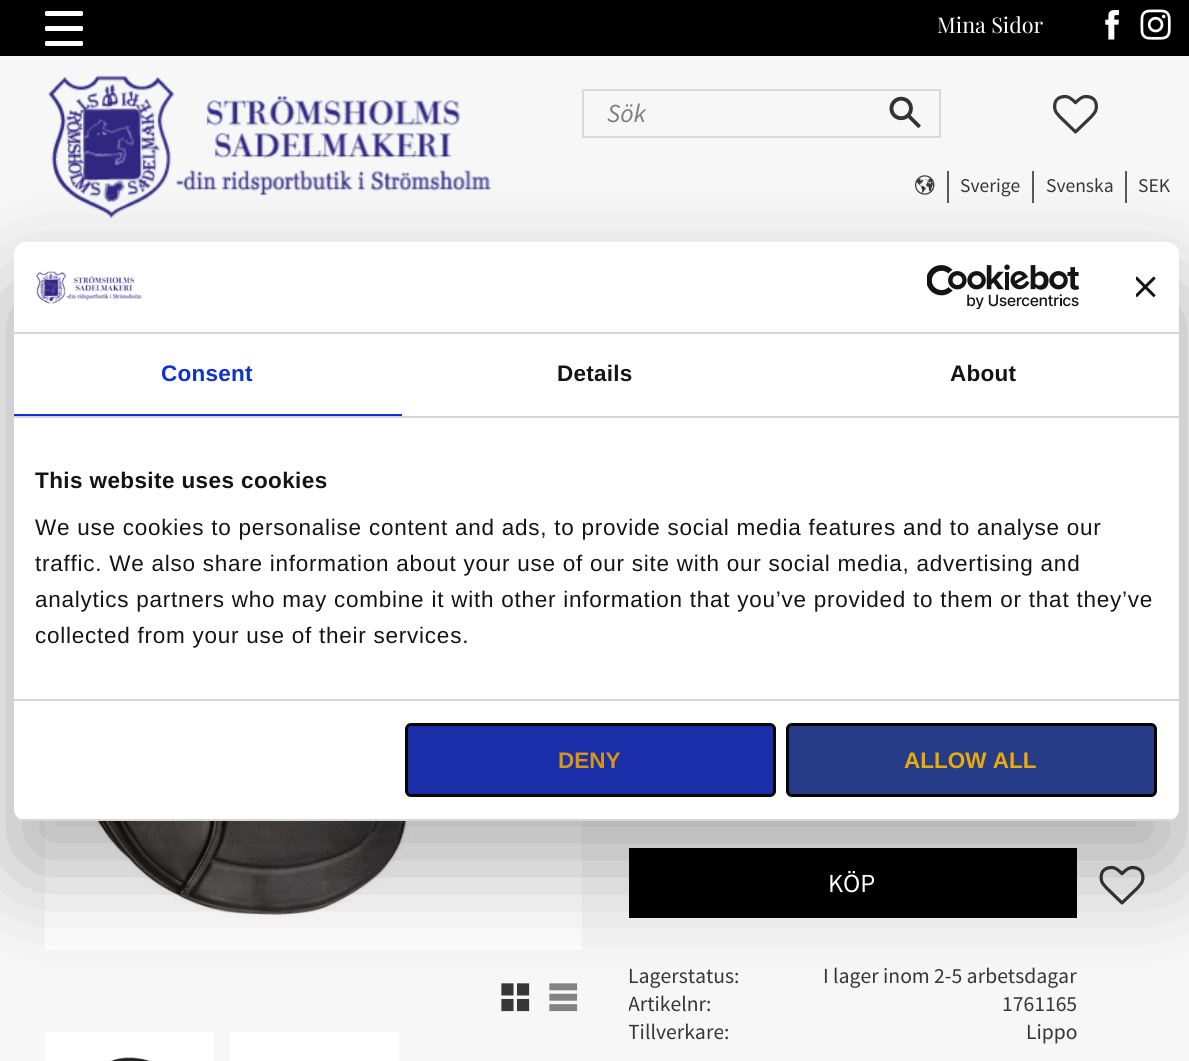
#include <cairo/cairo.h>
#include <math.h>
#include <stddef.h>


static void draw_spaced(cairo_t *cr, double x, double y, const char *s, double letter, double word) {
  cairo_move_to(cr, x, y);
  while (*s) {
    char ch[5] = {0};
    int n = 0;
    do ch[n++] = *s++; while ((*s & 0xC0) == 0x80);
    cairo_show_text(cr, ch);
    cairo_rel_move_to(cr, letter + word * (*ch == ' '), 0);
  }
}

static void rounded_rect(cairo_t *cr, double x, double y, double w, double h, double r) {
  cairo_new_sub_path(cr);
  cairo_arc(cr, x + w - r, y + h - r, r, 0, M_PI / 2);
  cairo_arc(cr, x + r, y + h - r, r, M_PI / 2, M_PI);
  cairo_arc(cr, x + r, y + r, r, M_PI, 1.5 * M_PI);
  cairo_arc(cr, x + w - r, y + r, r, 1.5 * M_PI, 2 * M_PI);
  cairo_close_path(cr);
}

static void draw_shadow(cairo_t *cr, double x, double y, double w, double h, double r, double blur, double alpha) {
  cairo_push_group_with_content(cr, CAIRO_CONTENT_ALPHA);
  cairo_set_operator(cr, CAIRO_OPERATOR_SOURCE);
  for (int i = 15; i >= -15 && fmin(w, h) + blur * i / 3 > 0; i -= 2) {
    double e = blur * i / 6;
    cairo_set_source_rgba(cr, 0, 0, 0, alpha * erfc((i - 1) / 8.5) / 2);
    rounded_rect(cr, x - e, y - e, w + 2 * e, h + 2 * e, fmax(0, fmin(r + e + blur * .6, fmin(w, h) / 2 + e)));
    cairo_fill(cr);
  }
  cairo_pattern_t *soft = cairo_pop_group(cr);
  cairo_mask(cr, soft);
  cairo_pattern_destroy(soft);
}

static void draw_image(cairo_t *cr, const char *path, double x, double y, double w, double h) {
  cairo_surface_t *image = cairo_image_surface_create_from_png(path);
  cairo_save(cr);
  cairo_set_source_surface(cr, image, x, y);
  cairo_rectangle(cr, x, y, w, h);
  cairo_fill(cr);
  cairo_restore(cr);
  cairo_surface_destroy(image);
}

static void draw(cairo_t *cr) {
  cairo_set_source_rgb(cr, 247 / 255.0, 247 / 255.0, 247 / 255.0);
  cairo_paint(cr);
  cairo_set_source_rgb(cr, 0, 0, 0);
  cairo_rectangle(cr, 0, 0, 1189, 56);
  cairo_fill(cr);
  cairo_set_source_rgb(cr, 1, 1, 1);
  rounded_rect(cr, 45, 26, 38, 5, 1.5);
  cairo_fill(cr);
  rounded_rect(cr, 45, 11, 38, 5, 1.5);
  cairo_fill(cr);
  rounded_rect(cr, 45, 41, 38, 5, 1.5);
  cairo_fill(cr);
  draw_image(cr, "images/1.png", 1105, 10, 14, 30);
  draw_image(cr, "images/2.png", 1140, 9, 31, 31);
  draw_image(cr, "images/3.png", 48, 75, 444, 144);
  cairo_rectangle(cr, 583, 90, 357, 47);
  cairo_set_source_rgb(cr, 217 / 255.0, 217 / 255.0, 217 / 255.0);
  cairo_stroke(cr);
  draw_image(cr, "images/4.png", 889, 96, 32, 32);
  draw_image(cr, "images/5.png", 1053, 94, 45, 40);
  draw_image(cr, "images/6.png", 915, 175, 20, 20);
  cairo_set_source_rgb(cr, 89 / 255.0, 89 / 255.0, 89 / 255.0);
  cairo_rectangle(cr, 947, 171, 2, 32);
  cairo_fill(cr);
  cairo_rectangle(cr, 1032, 171, 2, 32);
  cairo_fill(cr);
  cairo_rectangle(cr, 1125, 171, 2, 32);
  cairo_fill(cr);
  draw_image(cr, "images/7.png", 45, 821, 537, 129);
  draw_image(cr, "images/8.png", 501, 983, 29, 29);
  draw_image(cr, "images/9.png", 549, 983, 29, 29);
  draw_image(cr, "images/10.png", 45, 1032, 169, 29);
  cairo_set_source_rgb(cr, 1, 1, 1);
  cairo_rectangle(cr, 230, 1032, 169, 29);
  cairo_fill(cr);
  cairo_set_source_rgb(cr, 0, 0, 0);
  cairo_rectangle(cr, 629, 848, 448, 70);
  cairo_fill(cr);
  draw_image(cr, "images/11.png", 1099, 865, 46, 40);
  cairo_set_source_rgb(cr, 0, 0, 0);
  draw_shadow(cr, 14, 290, 1165, 579, 12, 51, 0.3);
  cairo_set_source_rgb(cr, 1, 1, 1);
  rounded_rect(cr, 14, 242, 1165, 579, 12);
  cairo_fill(cr);
  cairo_set_source_rgb(cr, 214 / 255.0, 214 / 255.0, 214 / 255.0);
  cairo_rectangle(cr, 14, 332, 1165, 2);
  cairo_fill(cr);
  draw_image(cr, "images/12.png", 36, 271, 106, 33);
  draw_image(cr, "images/13.png", 927, 264, 153, 45);
  draw_image(cr, "images/14.png", 1136, 276, 20, 21);
  cairo_rectangle(cr, 14, 416, 1165, 2);
  cairo_fill(cr);
  cairo_set_source_rgb(cr, 16 / 255.0, 50 / 255.0, 207 / 255.0);
  cairo_rectangle(cr, 14, 414, 388, 2);
  cairo_fill(cr);
  cairo_set_source_rgb(cr, 214 / 255.0, 214 / 255.0, 214 / 255.0);
  cairo_rectangle(cr, 14, 699, 1165, 2);
  cairo_fill(cr);
  cairo_save(cr);
  rounded_rect(cr, 14, 242, 1165, 579, 12);
  cairo_clip(cr);
  cairo_rectangle(cr, 14, 819, 1165, 2);
  cairo_fill(cr);
  cairo_restore(cr);
  cairo_set_source_rgb(cr, 27 / 255.0, 46 / 255.0, 169 / 255.0);
  rounded_rect(cr, 406.5, 724.5, 368, 71, 4.5);
  cairo_fill_preserve(cr);
  cairo_set_source_rgb(cr, 6 / 255.0, 6 / 255.0, 6 / 255.0);
  cairo_set_line_width(cr, 3);
  cairo_stroke(cr);
  cairo_set_source_rgb(cr, 38 / 255.0, 60 / 255.0, 136 / 255.0);
  rounded_rect(cr, 787.5, 724.5, 368, 71, 4.5);
  cairo_fill_preserve(cr);
  cairo_set_source_rgb(cr, 5 / 255.0, 5 / 255.0, 5 / 255.0);
  cairo_stroke(cr);
  cairo_select_font_face(cr, "Playfair Display", CAIRO_FONT_SLANT_NORMAL, CAIRO_FONT_WEIGHT_NORMAL);
  cairo_set_font_size(cr, 21.6);
  cairo_set_source_rgb(cr, 1, 1, 1);
  cairo_move_to(cr, 937, 33);
  cairo_show_text(cr, "Mina Sidor");
  cairo_select_font_face(cr, "Source Sans Pro", CAIRO_FONT_SLANT_ITALIC, CAIRO_FONT_WEIGHT_NORMAL);
  cairo_set_font_size(cr, 26);
  cairo_set_source_rgb(cr, 127 / 255.0, 127 / 255.0, 127 / 255.0);
  cairo_move_to(cr, 607, 122);
  cairo_show_text(cr, "Sök");
  cairo_select_font_face(cr, "Source Sans Pro", CAIRO_FONT_SLANT_NORMAL, CAIRO_FONT_WEIGHT_NORMAL);
  cairo_set_font_size(cr, 19.5);
  cairo_set_source_rgb(cr, 55 / 255.0, 55 / 255.0, 55 / 255.0);
  cairo_move_to(cr, 960, 192);
  cairo_show_text(cr, "Sverige");
  cairo_move_to(cr, 1046, 192);
  cairo_show_text(cr, "Svenska");
  cairo_move_to(cr, 1138, 192);
  cairo_show_text(cr, "SEK");
  cairo_set_font_size(cr, 26);
  cairo_set_source_rgb(cr, 1, 1, 1);
  cairo_move_to(cr, 828, 892);
  cairo_show_text(cr, "KÖP");
  cairo_set_font_size(cr, 21.6);
  cairo_set_source_rgb(cr, 55 / 255.0, 55 / 255.0, 55 / 255.0);
  cairo_move_to(cr, 628, 983);
  cairo_show_text(cr, "Lagerstatus:");
  cairo_move_to(cr, 823, 983);
  cairo_show_text(cr, "I lager inom 2-5 arbetsdagar");
  cairo_save(cr);
  cairo_rectangle(cr, 629, 992, 178, 28);
  cairo_clip(cr);
  cairo_move_to(cr, 628, 1011);
  cairo_show_text(cr, "Artikelnr");
  cairo_restore(cr);
  cairo_move_to(cr, 706, 1011);
  cairo_show_text(cr, ":");
  cairo_move_to(cr, 1002, 1011);
  cairo_show_text(cr, "1761165");
  cairo_save(cr);
  cairo_rectangle(cr, 629, 1020, 178, 27);
  cairo_clip(cr);
  cairo_move_to(cr, 628, 1039);
  cairo_show_text(cr, "Tillverkare");
  cairo_restore(cr);
  cairo_move_to(cr, 724, 1039);
  cairo_show_text(cr, ":");
  cairo_move_to(cr, 1026, 1039);
  cairo_show_text(cr, "Lippo");
  cairo_select_font_face(cr, "Liberation Sans", CAIRO_FONT_SLANT_NORMAL, CAIRO_FONT_WEIGHT_BOLD);
  cairo_set_font_size(cr, 22.5);
  cairo_set_source_rgb(cr, 16 / 255.0, 50 / 255.0, 207 / 255.0);
  draw_spaced(cr, 161, 381, "Consent", 0.25, 0);
  cairo_set_source_rgb(cr, 20 / 255.0, 20 / 255.0, 20 / 255.0);
  draw_spaced(cr, 557, 381, "Details", 0.25, 0);
  draw_spaced(cr, 950, 381, "About", 0.25, 0);
  draw_spaced(cr, 35, 488, "This website uses cookies", 0.4, 0);
  cairo_select_font_face(cr, "Liberation Sans", CAIRO_FONT_SLANT_NORMAL, CAIRO_FONT_WEIGHT_NORMAL);
  draw_spaced(cr, 35, 535, "We use cookies to personalise content and ads, to provide social media features and to analyse our", 0.75, 0);
  draw_spaced(cr, 35, 571, "traffic. We also share information about your use of our site with our social media, advertising and", 0.75, 0);
  draw_spaced(cr, 35, 607, "analytics partners who may combine it with other information that you’ve provided to them or that they’ve", 0.75, 0);
  draw_spaced(cr, 35, 643, "collected from your use of their services.", 0.75, 0);
  cairo_select_font_face(cr, "Liberation Sans", CAIRO_FONT_SLANT_NORMAL, CAIRO_FONT_WEIGHT_BOLD);
  cairo_set_source_rgb(cr, 214 / 255.0, 149 / 255.0, 18 / 255.0);
  cairo_move_to(cr, 558, 768);
  cairo_show_text(cr, "DENY");
  cairo_set_source_rgb(cr, 235 / 255.0, 170 / 255.0, 7 / 255.0);
  cairo_move_to(cr, 904, 768);
  cairo_show_text(cr, "ALLOW ALL");
}

int main(void) {
  cairo_surface_t *surface = cairo_image_surface_create(CAIRO_FORMAT_RGB24, 1189, 1061);
  cairo_t *cr = cairo_create(surface);
  cairo_font_options_t *options = cairo_font_options_create();
  cairo_font_options_set_hint_metrics(options, CAIRO_HINT_METRICS_OFF);
  cairo_font_options_set_hint_style(options, CAIRO_HINT_STYLE_NONE);
  cairo_set_font_options(cr, options);
  cairo_set_miter_limit(cr, 4);
  draw(cr);
  cairo_surface_write_to_png(surface, "out.png");
  cairo_font_options_destroy(options);
  cairo_destroy(cr);
  cairo_surface_destroy(surface);
  return 0;
}
